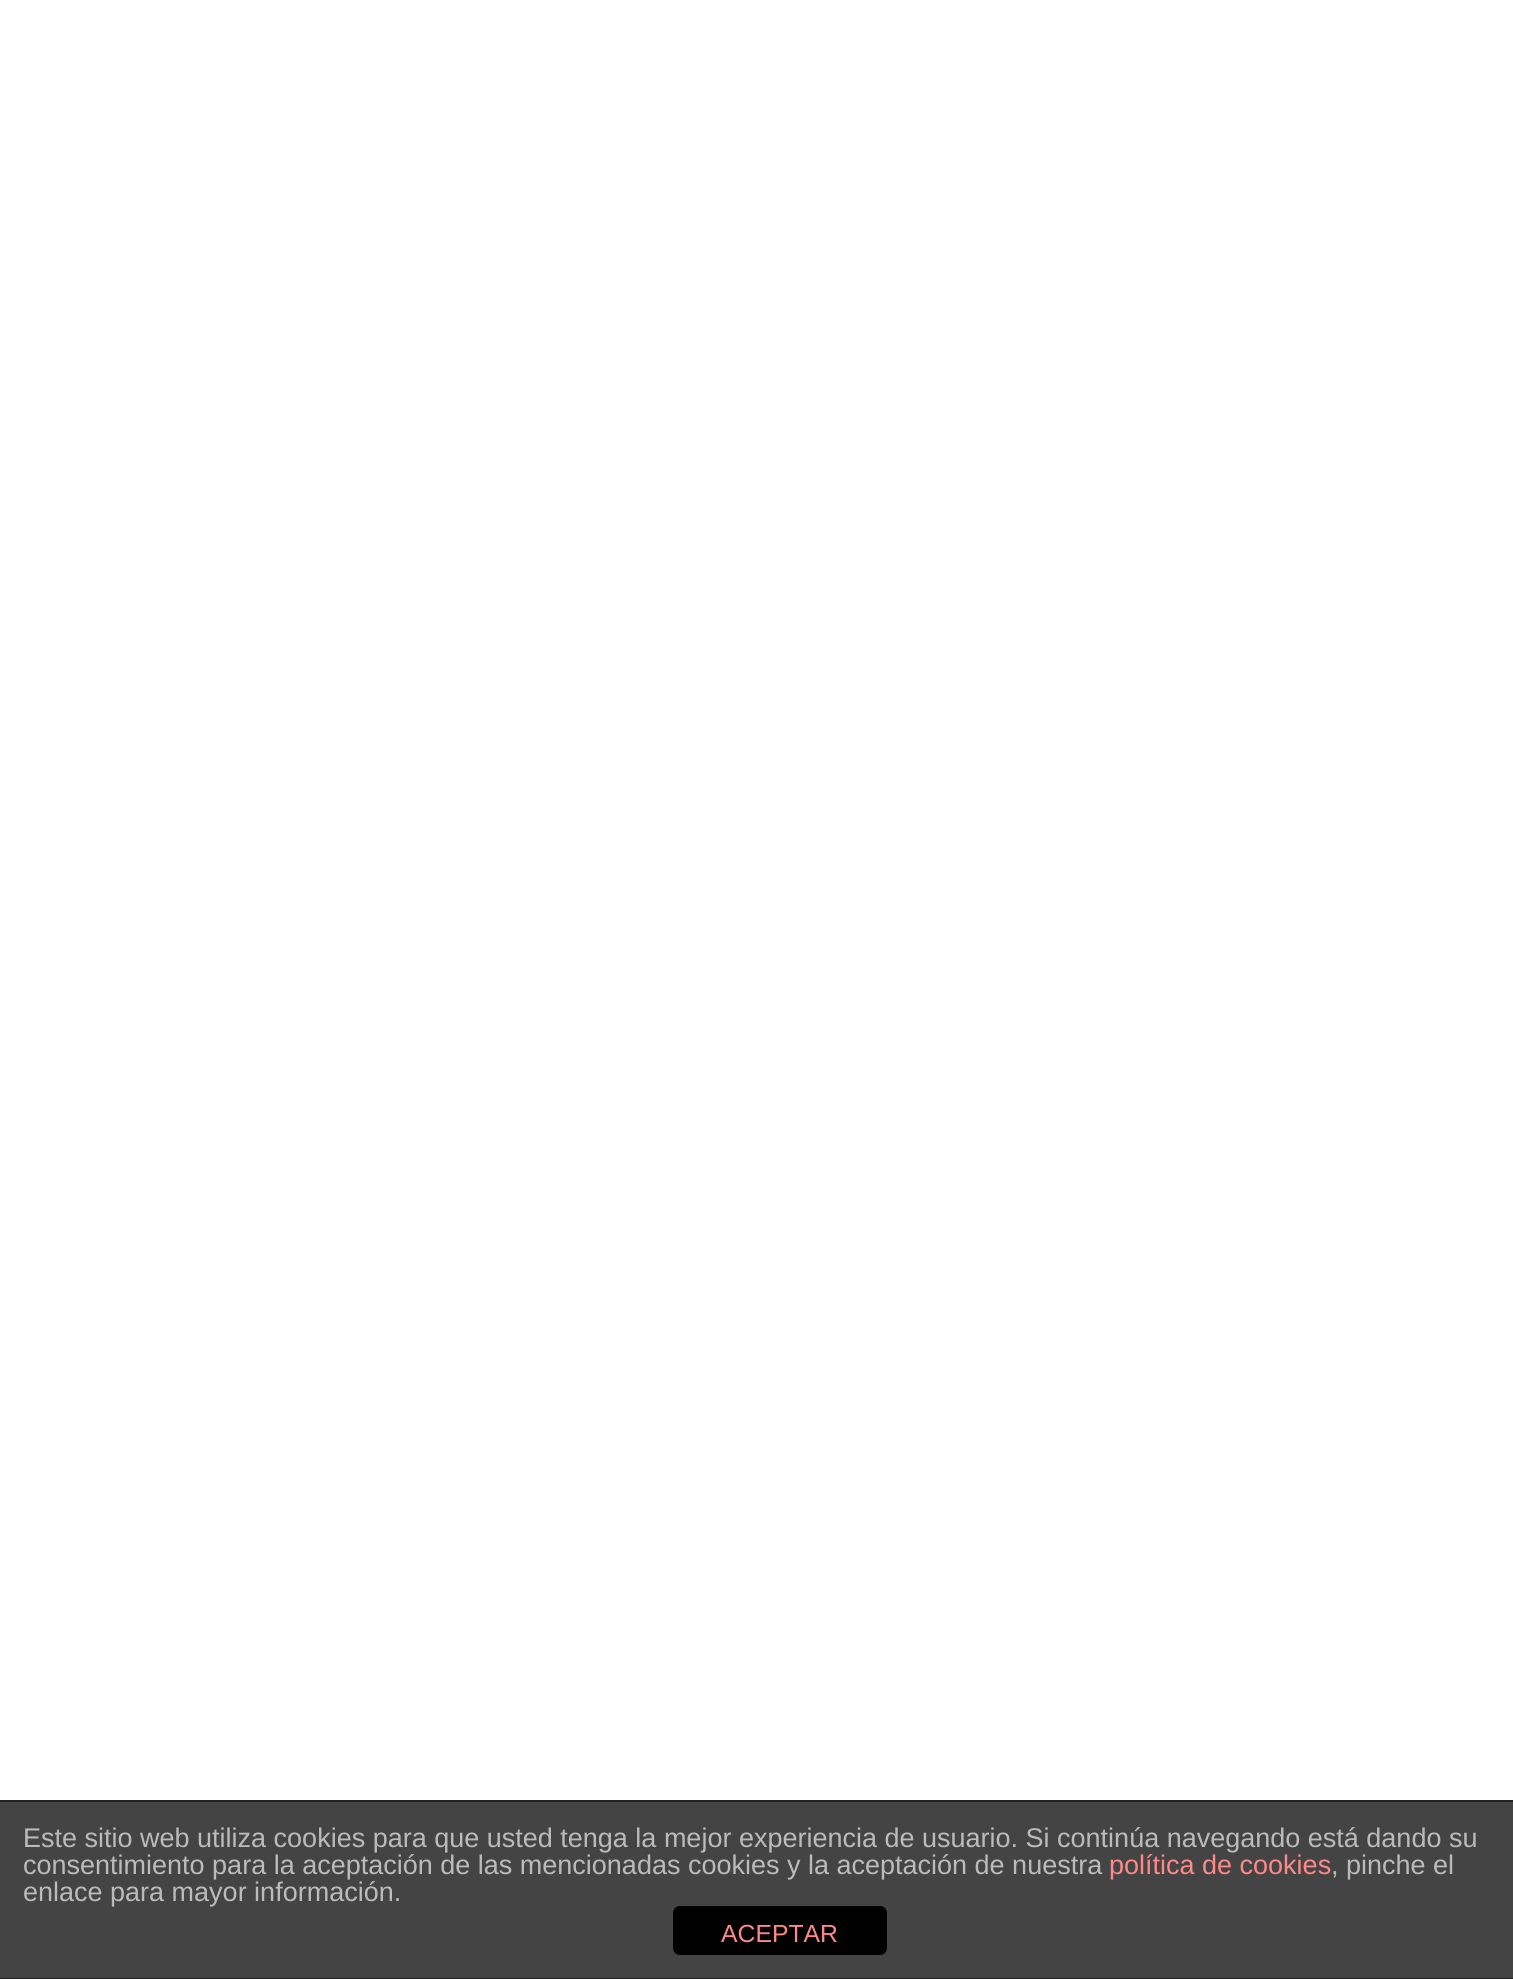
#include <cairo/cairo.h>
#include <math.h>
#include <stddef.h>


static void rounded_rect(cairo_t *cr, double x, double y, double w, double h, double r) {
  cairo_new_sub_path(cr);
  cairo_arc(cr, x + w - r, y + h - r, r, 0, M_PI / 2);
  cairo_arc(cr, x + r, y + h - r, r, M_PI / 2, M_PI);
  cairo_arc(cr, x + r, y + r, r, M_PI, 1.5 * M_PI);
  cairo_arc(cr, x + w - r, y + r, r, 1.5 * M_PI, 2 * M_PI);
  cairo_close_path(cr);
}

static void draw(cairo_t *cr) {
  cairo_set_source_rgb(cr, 1, 1, 1);
  cairo_paint(cr);
  cairo_set_source_rgb(cr, 68 / 255.0, 68 / 255.0, 68 / 255.0);
  cairo_rectangle(cr, 0, 1802, 1513, 176);
  cairo_fill(cr);
  cairo_set_source_rgb(cr, 34 / 255.0, 34 / 255.0, 34 / 255.0);
  cairo_rectangle(cr, 0, 1800, 1513, 2);
  cairo_fill(cr);
  cairo_rectangle(cr, 0, 1978, 1513, 1);
  cairo_fill(cr);
  cairo_set_source_rgb(cr, 0, 0, 0);
  rounded_rect(cr, 673, 1906, 214, 49, 7);
  cairo_fill(cr);
  cairo_select_font_face(cr, "Liberation Sans", CAIRO_FONT_SLANT_NORMAL, CAIRO_FONT_WEIGHT_NORMAL);
  cairo_set_font_size(cr, 27);
  cairo_set_source_rgb(cr, 187 / 255.0, 187 / 255.0, 187 / 255.0);
  cairo_move_to(cr, 23, 1847);
  cairo_show_text(cr, "Este sitio web utiliza cookies para que usted tenga la mejor experiencia de usuario. Si continúa navegando está dando su");
  cairo_move_to(cr, 23, 1874);
  cairo_show_text(cr, "consentimiento para la aceptación de las mencionadas cookies y la aceptación de nuestra");
  cairo_set_source_rgb(cr, 1, 136 / 255.0, 136 / 255.0);
  cairo_move_to(cr, 1109, 1874);
  cairo_show_text(cr, "política de cookies");
  cairo_set_source_rgb(cr, 187 / 255.0, 187 / 255.0, 187 / 255.0);
  cairo_move_to(cr, 1331, 1874);
  cairo_show_text(cr, ", pinche el");
  cairo_move_to(cr, 23, 1901);
  cairo_show_text(cr, "enlace para mayor información.");
  cairo_set_font_size(cr, 24.75);
  cairo_set_source_rgb(cr, 1, 136 / 255.0, 136 / 255.0);
  cairo_move_to(cr, 721, 1942);
  cairo_show_text(cr, "ACEPTAR");
}

int main(void) {
  cairo_surface_t *surface = cairo_image_surface_create(CAIRO_FORMAT_RGB24, 1513, 1979);
  cairo_t *cr = cairo_create(surface);
  cairo_font_options_t *options = cairo_font_options_create();
  cairo_font_options_set_hint_metrics(options, CAIRO_HINT_METRICS_OFF);
  cairo_font_options_set_hint_style(options, CAIRO_HINT_STYLE_NONE);
  cairo_set_font_options(cr, options);
  cairo_set_miter_limit(cr, 4);
  draw(cr);
  cairo_surface_write_to_png(surface, "out.png");
  cairo_font_options_destroy(options);
  cairo_destroy(cr);
  cairo_surface_destroy(surface);
  return 0;
}
